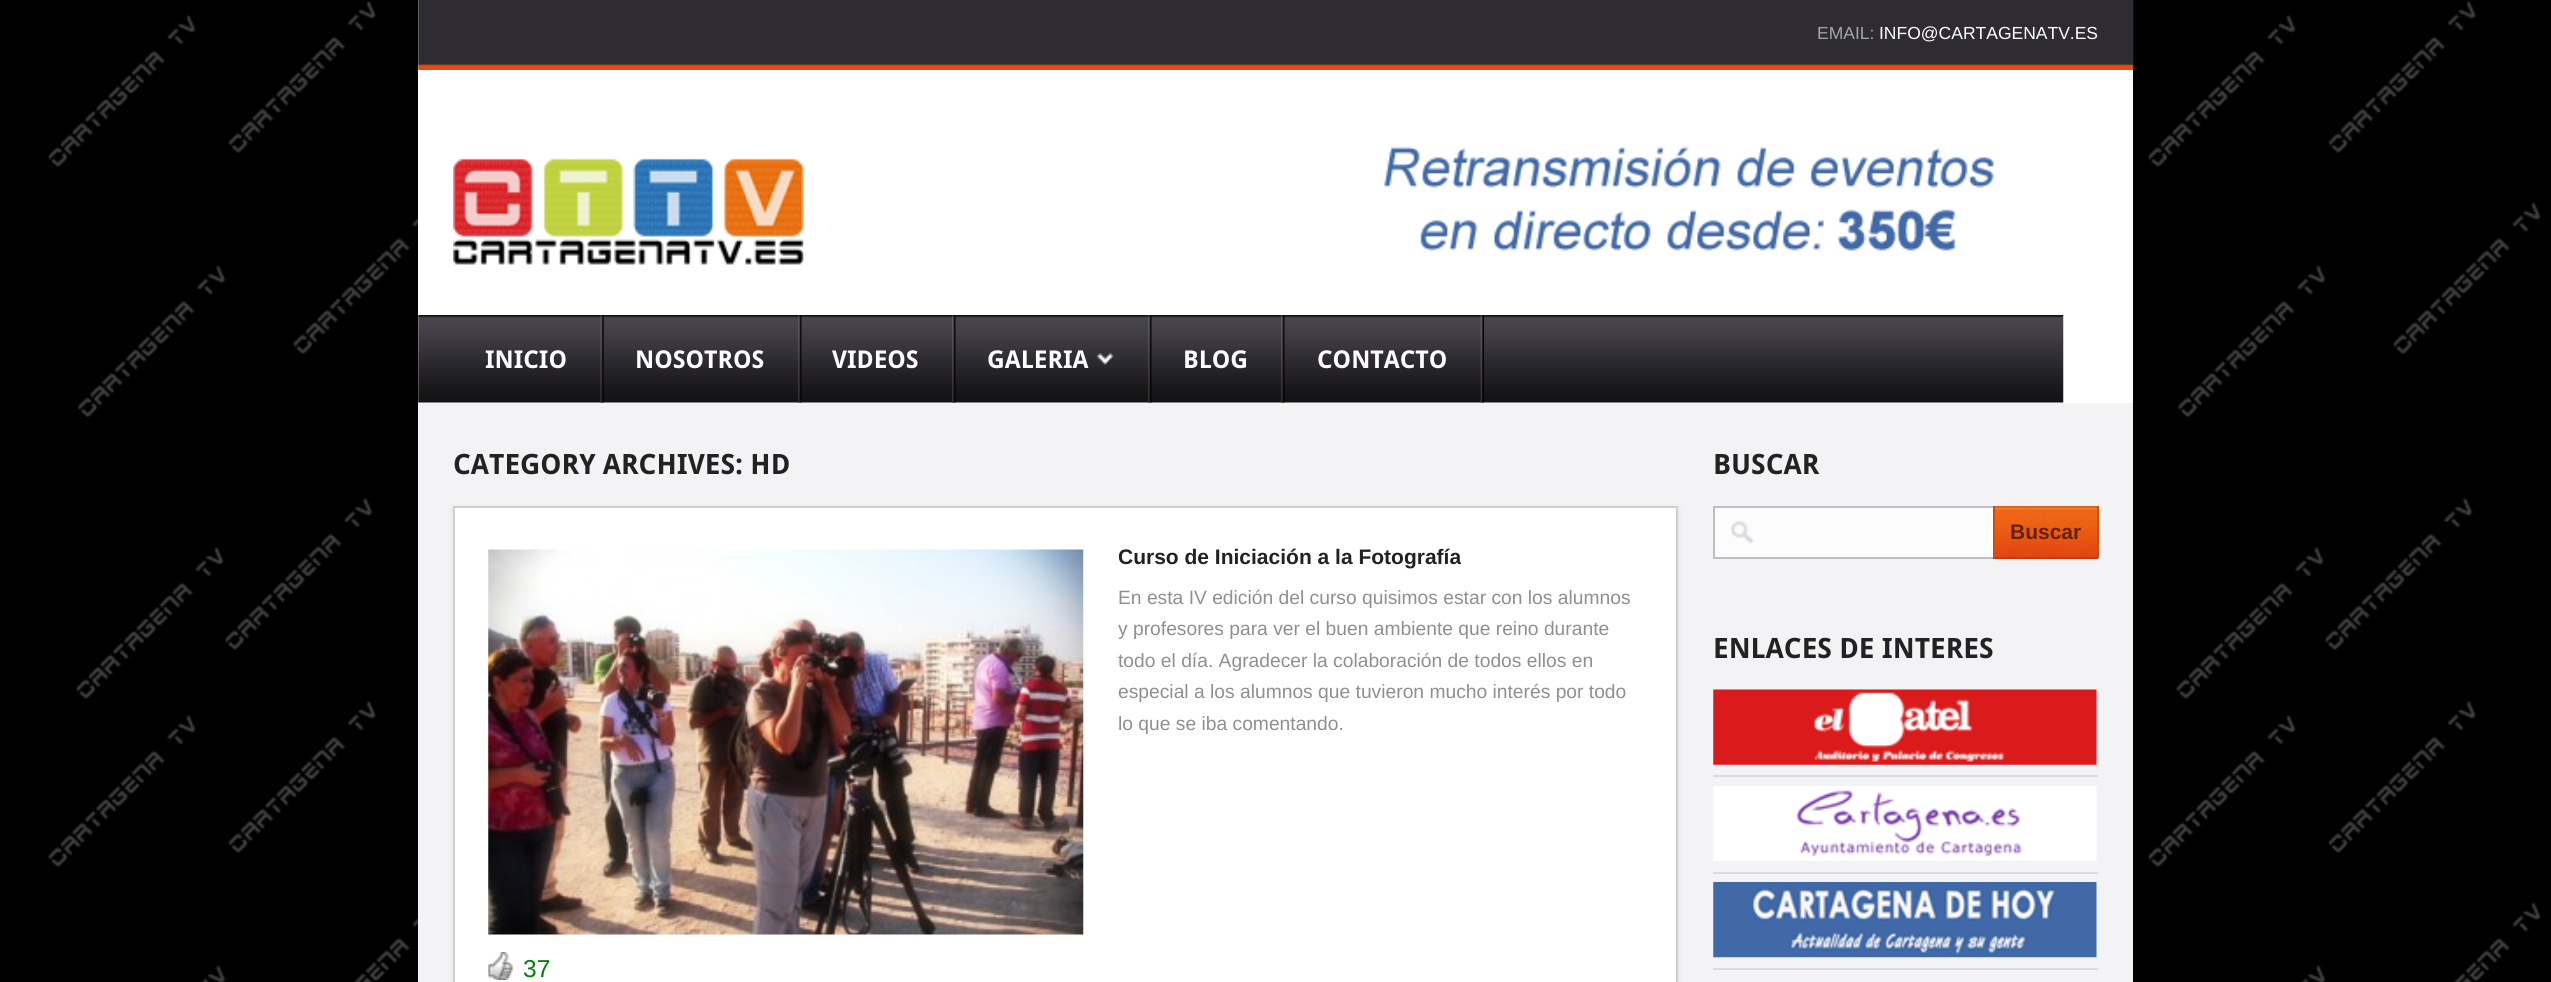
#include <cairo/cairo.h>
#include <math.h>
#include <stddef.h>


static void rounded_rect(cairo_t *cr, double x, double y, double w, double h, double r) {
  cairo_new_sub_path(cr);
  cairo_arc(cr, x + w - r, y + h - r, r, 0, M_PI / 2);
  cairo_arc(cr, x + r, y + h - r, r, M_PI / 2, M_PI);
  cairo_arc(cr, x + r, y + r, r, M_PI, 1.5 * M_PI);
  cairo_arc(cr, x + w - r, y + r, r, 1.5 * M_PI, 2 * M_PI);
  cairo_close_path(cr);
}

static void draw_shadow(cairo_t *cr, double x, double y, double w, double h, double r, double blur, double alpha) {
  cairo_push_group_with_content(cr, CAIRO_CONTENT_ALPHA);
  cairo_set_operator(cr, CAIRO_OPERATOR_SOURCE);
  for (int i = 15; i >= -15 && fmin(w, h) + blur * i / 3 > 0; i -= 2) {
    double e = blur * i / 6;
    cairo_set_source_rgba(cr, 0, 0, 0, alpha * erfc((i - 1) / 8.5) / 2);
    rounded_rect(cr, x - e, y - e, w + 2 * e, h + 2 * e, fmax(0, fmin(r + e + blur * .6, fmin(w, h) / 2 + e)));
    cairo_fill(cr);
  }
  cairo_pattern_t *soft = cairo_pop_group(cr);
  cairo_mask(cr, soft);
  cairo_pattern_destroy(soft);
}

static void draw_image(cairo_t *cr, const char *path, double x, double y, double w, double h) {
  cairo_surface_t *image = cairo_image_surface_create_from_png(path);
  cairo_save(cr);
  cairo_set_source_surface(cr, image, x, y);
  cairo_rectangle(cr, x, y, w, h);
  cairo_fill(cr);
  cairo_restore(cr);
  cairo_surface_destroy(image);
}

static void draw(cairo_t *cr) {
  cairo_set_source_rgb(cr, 0, 0, 0);
  cairo_paint(cr);
  draw_image(cr, "images/1.png", 47, 0, 2495, 982);
  draw_shadow(cr, 418, 0, 1715, 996, 0, 4.5, 0.3);
  cairo_set_source_rgb(cr, 243 / 255.0, 243 / 255.0, 245 / 255.0);
  cairo_rectangle(cr, 418, 403, 1715, 579);
  cairo_fill(cr);
  cairo_set_source_rgb(cr, 1, 1, 1);
  cairo_rectangle(cr, 418, 0, 1715, 403);
  cairo_fill(cr);
  draw_image(cr, "images/2.png", 418, 0, 1716, 70);
  draw_image(cr, "images/3.png", 453, 158, 351, 107);
  draw_image(cr, "images/4.png", 1383, 146, 611, 105);
  draw_image(cr, "images/5.png", 418, 315, 1646, 88);
  draw_image(cr, "images/6.png", 600, 315, 4, 88);
  draw_image(cr, "images/7.png", 798, 315, 4, 88);
  draw_image(cr, "images/7.png", 952, 315, 4, 88);
  draw_image(cr, "images/7.png", 1148, 315, 4, 88);
  draw_image(cr, "images/8.png", 1097, 353, 17, 13);
  draw_image(cr, "images/7.png", 1281, 315, 4, 88);
  draw_image(cr, "images/9.png", 1480, 315, 4, 88);
  cairo_set_source_rgb(cr, 0, 0, 0);
  draw_shadow(cr, 453, 508, 1225, 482, 0, 2.5, 0.1);
  cairo_set_source_rgb(cr, 1, 1, 1);
  cairo_rectangle(cr, 454, 507, 1223, 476);
  cairo_fill_preserve(cr);
  cairo_set_source_rgb(cr, 207 / 255.0, 207 / 255.0, 207 / 255.0);
  cairo_stroke(cr);
  draw_image(cr, "images/10.png", 488, 549, 596, 386);
  draw_image(cr, "images/11.png", 488, 952, 25, 28);
  cairo_set_source_rgb(cr, 252 / 255.0, 252 / 255.0, 252 / 255.0);
  cairo_rectangle(cr, 1715, 508, 278, 49);
  cairo_fill(cr);
  draw_image(cr, "images/12.png", 1730, 521, 24, 23);
  cairo_set_source_rgb(cr, 185 / 255.0, 191 / 255.0, 197 / 255.0);
  cairo_rectangle(cr, 1713, 506, 280, 2);
  cairo_fill(cr);
  cairo_rectangle(cr, 1713, 557, 280, 2);
  cairo_fill(cr);
  cairo_rectangle(cr, 1713, 506, 2, 52);
  cairo_fill(cr);
  cairo_set_source_rgb(cr, 229 / 255.0, 67 / 255.0, 17 / 255.0);
  cairo_rectangle(cr, 1995, 556, 102, 1);
  cairo_fill(cr);
  draw_image(cr, "images/13.png", 1995, 508, 102, 49);
  cairo_set_source_rgb(cr, 225 / 255.0, 101 / 255.0, 23 / 255.0);
  cairo_rectangle(cr, 1993, 506, 105, 2);
  cairo_fill(cr);
  cairo_set_source_rgb(cr, 208 / 255.0, 76 / 255.0, 13 / 255.0);
  cairo_rectangle(cr, 2097, 506, 2, 52);
  cairo_fill(cr);
  cairo_set_source_rgb(cr, 197 / 255.0, 59 / 255.0, 15 / 255.0);
  cairo_rectangle(cr, 1993, 557, 105, 2);
  cairo_fill(cr);
  cairo_set_source_rgb(cr, 208 / 255.0, 76 / 255.0, 13 / 255.0);
  cairo_rectangle(cr, 1993, 506, 2, 52);
  cairo_fill(cr);
  cairo_set_source_rgb(cr, 219 / 255.0, 219 / 255.0, 219 / 255.0);
  cairo_rectangle(cr, 1713, 775, 385, 2);
  cairo_fill(cr);
  draw_image(cr, "images/14.png", 1713, 689, 384, 76);
  cairo_rectangle(cr, 1713, 872, 385, 2);
  cairo_fill(cr);
  draw_image(cr, "images/15.png", 1713, 786, 384, 75);
  cairo_rectangle(cr, 1713, 968, 385, 2);
  cairo_fill(cr);
  draw_image(cr, "images/16.png", 1713, 882, 384, 76);
  cairo_select_font_face(cr, "Liberation Sans", CAIRO_FONT_SLANT_NORMAL, CAIRO_FONT_WEIGHT_NORMAL);
  cairo_set_font_size(cr, 17.5);
  cairo_set_source_rgb(cr, 165 / 255.0, 165 / 255.0, 165 / 255.0);
  cairo_move_to(cr, 1817, 39);
  cairo_show_text(cr, "EMAIL:");
  cairo_set_source_rgb(cr, 1, 1, 1);
  cairo_move_to(cr, 1879, 39);
  cairo_show_text(cr, "INFO@CARTAGENATV.ES");
  cairo_select_font_face(cr, "Droid Sans", CAIRO_FONT_SLANT_NORMAL, CAIRO_FONT_WEIGHT_BOLD);
  cairo_set_font_size(cr, 24.5);
  cairo_move_to(cr, 485, 368);
  cairo_show_text(cr, "INICIO");
  cairo_move_to(cr, 635, 368);
  cairo_show_text(cr, "NOSOTROS");
  cairo_move_to(cr, 832, 368);
  cairo_show_text(cr, "VIDEOS");
  cairo_move_to(cr, 987, 368);
  cairo_show_text(cr, "GALERIA");
  cairo_move_to(cr, 1183, 368);
  cairo_show_text(cr, "BLOG");
  cairo_move_to(cr, 1317, 368);
  cairo_show_text(cr, "CONTACTO");
  cairo_set_font_size(cr, 28);
  cairo_set_source_rgb(cr, 34 / 255.0, 34 / 255.0, 34 / 255.0);
  cairo_move_to(cr, 453, 474);
  cairo_show_text(cr, "CATEGORY ARCHIVES: HD");
  cairo_select_font_face(cr, "Liberation Sans", CAIRO_FONT_SLANT_NORMAL, CAIRO_FONT_WEIGHT_BOLD);
  cairo_set_font_size(cr, 21);
  cairo_move_to(cr, 1118, 564);
  cairo_show_text(cr, "Curso de Iniciación a la Fotografía");
  cairo_select_font_face(cr, "Liberation Sans", CAIRO_FONT_SLANT_NORMAL, CAIRO_FONT_WEIGHT_NORMAL);
  cairo_set_font_size(cr, 19.25);
  cairo_set_source_rgb(cr, 143 / 255.0, 143 / 255.0, 143 / 255.0);
  cairo_move_to(cr, 1118, 604);
  cairo_show_text(cr, "En esta IV edición del curso quisimos estar con los alumnos");
  cairo_move_to(cr, 1118, 635);
  cairo_show_text(cr, "y profesores para ver el buen ambiente que reino durante");
  cairo_move_to(cr, 1118, 667);
  cairo_show_text(cr, "todo el día. Agradecer la colaboración de todos ellos en");
  cairo_move_to(cr, 1118, 698);
  cairo_show_text(cr, "especial a los alumnos que tuvieron mucho interés por todo");
  cairo_move_to(cr, 1118, 730);
  cairo_show_text(cr, "lo que se iba comentando.");
  cairo_set_font_size(cr, 24.5);
  cairo_set_source_rgb(cr, 0, 128 / 255.0, 0);
  cairo_move_to(cr, 523, 977);
  cairo_show_text(cr, "37");
  cairo_select_font_face(cr, "Droid Sans", CAIRO_FONT_SLANT_NORMAL, CAIRO_FONT_WEIGHT_BOLD);
  cairo_set_font_size(cr, 28);
  cairo_set_source_rgb(cr, 34 / 255.0, 34 / 255.0, 34 / 255.0);
  cairo_move_to(cr, 1713, 474);
  cairo_show_text(cr, "BUSCAR");
  cairo_select_font_face(cr, "Liberation Sans", CAIRO_FONT_SLANT_NORMAL, CAIRO_FONT_WEIGHT_BOLD);
  cairo_set_font_size(cr, 21);
  cairo_set_source_rgb(cr, 99 / 255.0, 33 / 255.0, 7 / 255.0);
  cairo_move_to(cr, 2010, 539);
  cairo_show_text(cr, "Buscar");
  cairo_select_font_face(cr, "Droid Sans", CAIRO_FONT_SLANT_NORMAL, CAIRO_FONT_WEIGHT_BOLD);
  cairo_set_font_size(cr, 28);
  cairo_set_source_rgb(cr, 34 / 255.0, 34 / 255.0, 34 / 255.0);
  cairo_move_to(cr, 1713, 658);
  cairo_show_text(cr, "ENLACES DE INTERES");
}

int main(void) {
  cairo_surface_t *surface = cairo_image_surface_create(CAIRO_FORMAT_RGB24, 2551, 982);
  cairo_t *cr = cairo_create(surface);
  cairo_font_options_t *options = cairo_font_options_create();
  cairo_font_options_set_hint_metrics(options, CAIRO_HINT_METRICS_OFF);
  cairo_font_options_set_hint_style(options, CAIRO_HINT_STYLE_NONE);
  cairo_set_font_options(cr, options);
  cairo_set_miter_limit(cr, 4);
  draw(cr);
  cairo_surface_write_to_png(surface, "out.png");
  cairo_font_options_destroy(options);
  cairo_destroy(cr);
  cairo_surface_destroy(surface);
  return 0;
}
